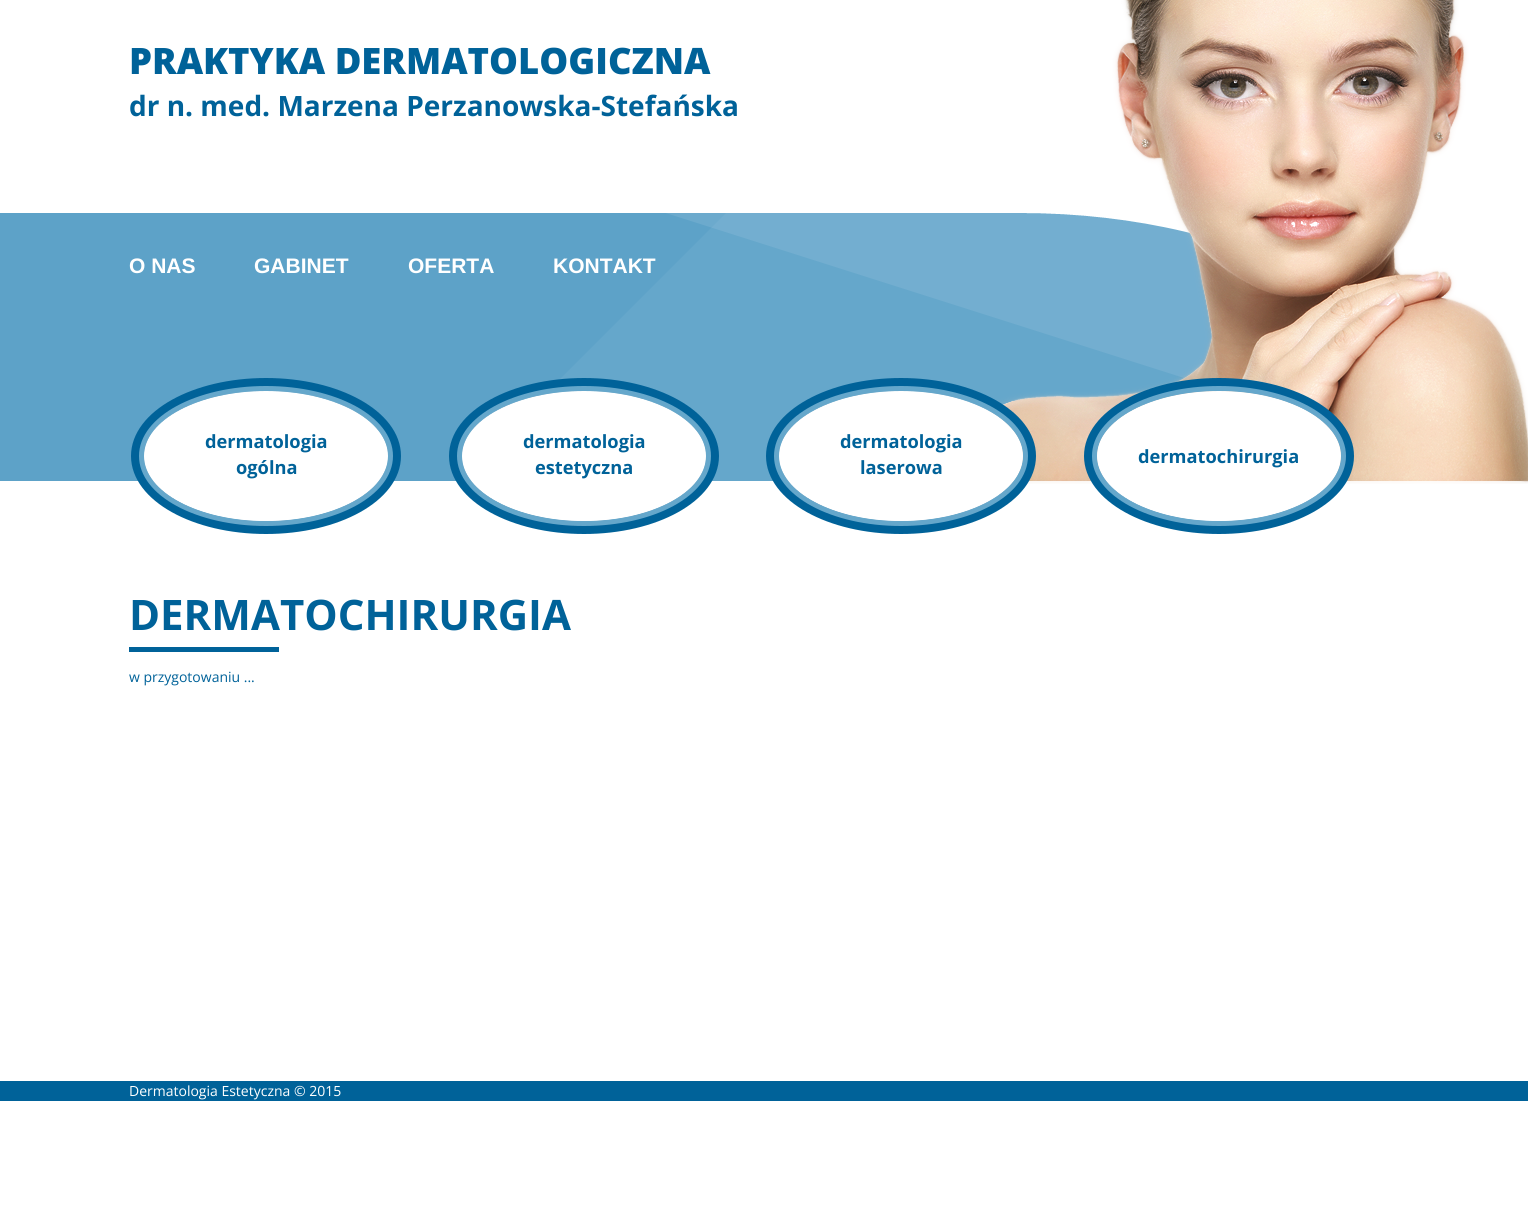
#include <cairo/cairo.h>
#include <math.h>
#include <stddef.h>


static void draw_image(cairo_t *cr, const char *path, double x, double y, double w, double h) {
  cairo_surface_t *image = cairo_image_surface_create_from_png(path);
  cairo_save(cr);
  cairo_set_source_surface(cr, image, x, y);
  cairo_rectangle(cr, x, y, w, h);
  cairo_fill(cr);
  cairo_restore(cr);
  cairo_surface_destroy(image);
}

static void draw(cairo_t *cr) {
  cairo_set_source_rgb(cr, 1, 1, 1);
  cairo_paint(cr);
  draw_image(cr, "images/1.png", 0, 213, 1443, 268);
  draw_image(cr, "images/2.png", 987, 0, 541, 484);
  cairo_new_path(cr);
  cairo_move_to(cr, 266, 384.5);
  cairo_curve_to(cr, 337, 384.5, 394.5, 416.5, 394.5, 456);
  cairo_curve_to(cr, 394.5, 495.5, 337, 527.5, 266, 527.5);
  cairo_curve_to(cr, 195, 527.5, 137.5, 495.5, 137.5, 456);
  cairo_curve_to(cr, 137.5, 416.5, 195, 384.5, 266, 384.5);
  cairo_close_path(cr);
  cairo_set_source_rgb(cr, 0, 98 / 255.0, 153 / 255.0);
  cairo_set_line_width(cr, 13);
  cairo_stroke(cr);
  cairo_new_path(cr);
  cairo_move_to(cr, 266, 388.5);
  cairo_curve_to(cr, 335, 388.5, 390.5, 418.5, 390.5, 456);
  cairo_curve_to(cr, 390.5, 493.5, 335, 523.5, 266, 523.5);
  cairo_curve_to(cr, 197, 523.5, 141.5, 493.5, 141.5, 456);
  cairo_curve_to(cr, 141.5, 418.5, 197, 388.5, 266, 388.5);
  cairo_close_path(cr);
  cairo_set_source_rgb(cr, 101 / 255.0, 167 / 255.0, 203 / 255.0);
  cairo_set_line_width(cr, 5);
  cairo_stroke(cr);
  cairo_set_source_rgb(cr, 1, 1, 1);
  cairo_new_path(cr);
  cairo_move_to(cr, 266, 391);
  cairo_curve_to(cr, 333.5, 391, 388, 420, 388, 456);
  cairo_curve_to(cr, 388, 492, 333.5, 521, 266, 521);
  cairo_curve_to(cr, 198.5, 521, 144, 492, 144, 456);
  cairo_curve_to(cr, 144, 420, 198.5, 391, 266, 391);
  cairo_close_path(cr);
  cairo_fill(cr);
  cairo_new_path(cr);
  cairo_move_to(cr, 584, 384.5);
  cairo_curve_to(cr, 655, 384.5, 712.5, 416.5, 712.5, 456);
  cairo_curve_to(cr, 712.5, 495.5, 655, 527.5, 584, 527.5);
  cairo_curve_to(cr, 513, 527.5, 455.5, 495.5, 455.5, 456);
  cairo_curve_to(cr, 455.5, 416.5, 513, 384.5, 584, 384.5);
  cairo_close_path(cr);
  cairo_set_source_rgb(cr, 0, 98 / 255.0, 153 / 255.0);
  cairo_set_line_width(cr, 13);
  cairo_stroke(cr);
  cairo_new_path(cr);
  cairo_move_to(cr, 584, 388.5);
  cairo_curve_to(cr, 653, 388.5, 708.5, 418.5, 708.5, 456);
  cairo_curve_to(cr, 708.5, 493.5, 653, 523.5, 584, 523.5);
  cairo_curve_to(cr, 515, 523.5, 459.5, 493.5, 459.5, 456);
  cairo_curve_to(cr, 459.5, 418.5, 515, 388.5, 584, 388.5);
  cairo_close_path(cr);
  cairo_set_source_rgb(cr, 101 / 255.0, 167 / 255.0, 203 / 255.0);
  cairo_set_line_width(cr, 5);
  cairo_stroke(cr);
  cairo_set_source_rgb(cr, 1, 1, 1);
  cairo_new_path(cr);
  cairo_move_to(cr, 584, 391);
  cairo_curve_to(cr, 651.5, 391, 706, 420, 706, 456);
  cairo_curve_to(cr, 706, 492, 651.5, 521, 584, 521);
  cairo_curve_to(cr, 516.5, 521, 462, 492, 462, 456);
  cairo_curve_to(cr, 462, 420, 516.5, 391, 584, 391);
  cairo_close_path(cr);
  cairo_fill(cr);
  cairo_new_path(cr);
  cairo_move_to(cr, 901, 384.5);
  cairo_curve_to(cr, 972, 384.5, 1029.5, 416.5, 1029.5, 456);
  cairo_curve_to(cr, 1029.5, 495.5, 972, 527.5, 901, 527.5);
  cairo_curve_to(cr, 830, 527.5, 772.5, 495.5, 772.5, 456);
  cairo_curve_to(cr, 772.5, 416.5, 830, 384.5, 901, 384.5);
  cairo_close_path(cr);
  cairo_set_source_rgb(cr, 0, 98 / 255.0, 153 / 255.0);
  cairo_set_line_width(cr, 13);
  cairo_stroke(cr);
  cairo_new_path(cr);
  cairo_move_to(cr, 901, 388.5);
  cairo_curve_to(cr, 970, 388.5, 1025.5, 418.5, 1025.5, 456);
  cairo_curve_to(cr, 1025.5, 493.5, 970, 523.5, 901, 523.5);
  cairo_curve_to(cr, 832, 523.5, 776.5, 493.5, 776.5, 456);
  cairo_curve_to(cr, 776.5, 418.5, 832, 388.5, 901, 388.5);
  cairo_close_path(cr);
  cairo_set_source_rgb(cr, 101 / 255.0, 167 / 255.0, 203 / 255.0);
  cairo_set_line_width(cr, 5);
  cairo_stroke(cr);
  cairo_set_source_rgb(cr, 1, 1, 1);
  cairo_new_path(cr);
  cairo_move_to(cr, 901, 391);
  cairo_curve_to(cr, 968.5, 391, 1023, 420, 1023, 456);
  cairo_curve_to(cr, 1023, 492, 968.5, 521, 901, 521);
  cairo_curve_to(cr, 833.5, 521, 779, 492, 779, 456);
  cairo_curve_to(cr, 779, 420, 833.5, 391, 901, 391);
  cairo_close_path(cr);
  cairo_fill(cr);
  cairo_new_path(cr);
  cairo_move_to(cr, 1219, 384.5);
  cairo_curve_to(cr, 1290, 384.5, 1347.5, 416.5, 1347.5, 456);
  cairo_curve_to(cr, 1347.5, 495.5, 1290, 527.5, 1219, 527.5);
  cairo_curve_to(cr, 1148, 527.5, 1090.5, 495.5, 1090.5, 456);
  cairo_curve_to(cr, 1090.5, 416.5, 1148, 384.5, 1219, 384.5);
  cairo_close_path(cr);
  cairo_set_source_rgb(cr, 0, 98 / 255.0, 153 / 255.0);
  cairo_set_line_width(cr, 13);
  cairo_stroke(cr);
  cairo_new_path(cr);
  cairo_move_to(cr, 1219, 388.5);
  cairo_curve_to(cr, 1288, 388.5, 1343.5, 418.5, 1343.5, 456);
  cairo_curve_to(cr, 1343.5, 493.5, 1288, 523.5, 1219, 523.5);
  cairo_curve_to(cr, 1150, 523.5, 1094.5, 493.5, 1094.5, 456);
  cairo_curve_to(cr, 1094.5, 418.5, 1150, 388.5, 1219, 388.5);
  cairo_close_path(cr);
  cairo_set_source_rgb(cr, 101 / 255.0, 167 / 255.0, 203 / 255.0);
  cairo_set_line_width(cr, 5);
  cairo_stroke(cr);
  cairo_set_source_rgb(cr, 1, 1, 1);
  cairo_new_path(cr);
  cairo_move_to(cr, 1219, 391);
  cairo_curve_to(cr, 1286.5, 391, 1341, 420, 1341, 456);
  cairo_curve_to(cr, 1341, 492, 1286.5, 521, 1219, 521);
  cairo_curve_to(cr, 1151.5, 521, 1097, 492, 1097, 456);
  cairo_curve_to(cr, 1097, 420, 1151.5, 391, 1219, 391);
  cairo_close_path(cr);
  cairo_fill(cr);
  cairo_set_source_rgb(cr, 0, 98 / 255.0, 153 / 255.0);
  cairo_rectangle(cr, 129, 647, 150, 5);
  cairo_fill(cr);
  cairo_rectangle(cr, 0, 1081, 1528, 20);
  cairo_fill(cr);
  cairo_select_font_face(cr, "Open Sans ExtraBold", CAIRO_FONT_SLANT_NORMAL, CAIRO_FONT_WEIGHT_NORMAL);
  cairo_set_font_size(cr, 36.4);
  cairo_move_to(cr, 129, 74);
  cairo_show_text(cr, "PRAKTYKA DERMATOLOGICZNA");
  cairo_select_font_face(cr, "Open Sans", CAIRO_FONT_SLANT_NORMAL, CAIRO_FONT_WEIGHT_BOLD);
  cairo_set_font_size(cr, 28);
  cairo_move_to(cr, 129, 116);
  cairo_show_text(cr, "dr n. med. Marzena Perzanowska-Stefańska");
  cairo_select_font_face(cr, "Liberation Sans", CAIRO_FONT_SLANT_NORMAL, CAIRO_FONT_WEIGHT_BOLD);
  cairo_set_font_size(cr, 21);
  cairo_set_source_rgb(cr, 1, 1, 1);
  cairo_move_to(cr, 129, 273);
  cairo_show_text(cr, "O NAS");
  cairo_move_to(cr, 254, 273);
  cairo_show_text(cr, "GABINET");
  cairo_move_to(cr, 408, 273);
  cairo_show_text(cr, "OFERTA");
  cairo_move_to(cr, 553, 273);
  cairo_show_text(cr, "KONTAKT");
  cairo_select_font_face(cr, "Open Sans", CAIRO_FONT_SLANT_NORMAL, CAIRO_FONT_WEIGHT_BOLD);
  cairo_set_font_size(cr, 18.25);
  cairo_set_source_rgb(cr, 0, 98 / 255.0, 153 / 255.0);
  cairo_move_to(cr, 205, 448);
  cairo_show_text(cr, "dermatologia");
  cairo_move_to(cr, 236, 474);
  cairo_show_text(cr, "ogólna");
  cairo_move_to(cr, 523, 448);
  cairo_show_text(cr, "dermatologia");
  cairo_move_to(cr, 535, 474);
  cairo_show_text(cr, "estetyczna");
  cairo_move_to(cr, 840, 448);
  cairo_show_text(cr, "dermatologia");
  cairo_move_to(cr, 860, 474);
  cairo_show_text(cr, "laserowa");
  cairo_move_to(cr, 1138, 463);
  cairo_show_text(cr, "dermatochirurgia");
  cairo_set_font_size(cr, 42);
  cairo_move_to(cr, 129, 630);
  cairo_show_text(cr, "DERMATOCHIRURGIA");
  cairo_select_font_face(cr, "Open Sans", CAIRO_FONT_SLANT_NORMAL, CAIRO_FONT_WEIGHT_NORMAL);
  cairo_set_font_size(cr, 14);
  cairo_move_to(cr, 129, 682);
  cairo_show_text(cr, "w przygotowaniu ...");
  cairo_set_source_rgb(cr, 1, 1, 1);
  cairo_move_to(cr, 129, 1096);
  cairo_show_text(cr, "Dermatologia Estetyczna © 2015");
}

int main(void) {
  cairo_surface_t *surface = cairo_image_surface_create(CAIRO_FORMAT_RGB24, 1528, 1223);
  cairo_t *cr = cairo_create(surface);
  cairo_font_options_t *options = cairo_font_options_create();
  cairo_font_options_set_hint_metrics(options, CAIRO_HINT_METRICS_OFF);
  cairo_font_options_set_hint_style(options, CAIRO_HINT_STYLE_NONE);
  cairo_set_font_options(cr, options);
  cairo_set_miter_limit(cr, 4);
  draw(cr);
  cairo_surface_write_to_png(surface, "out.png");
  cairo_font_options_destroy(options);
  cairo_destroy(cr);
  cairo_surface_destroy(surface);
  return 0;
}
